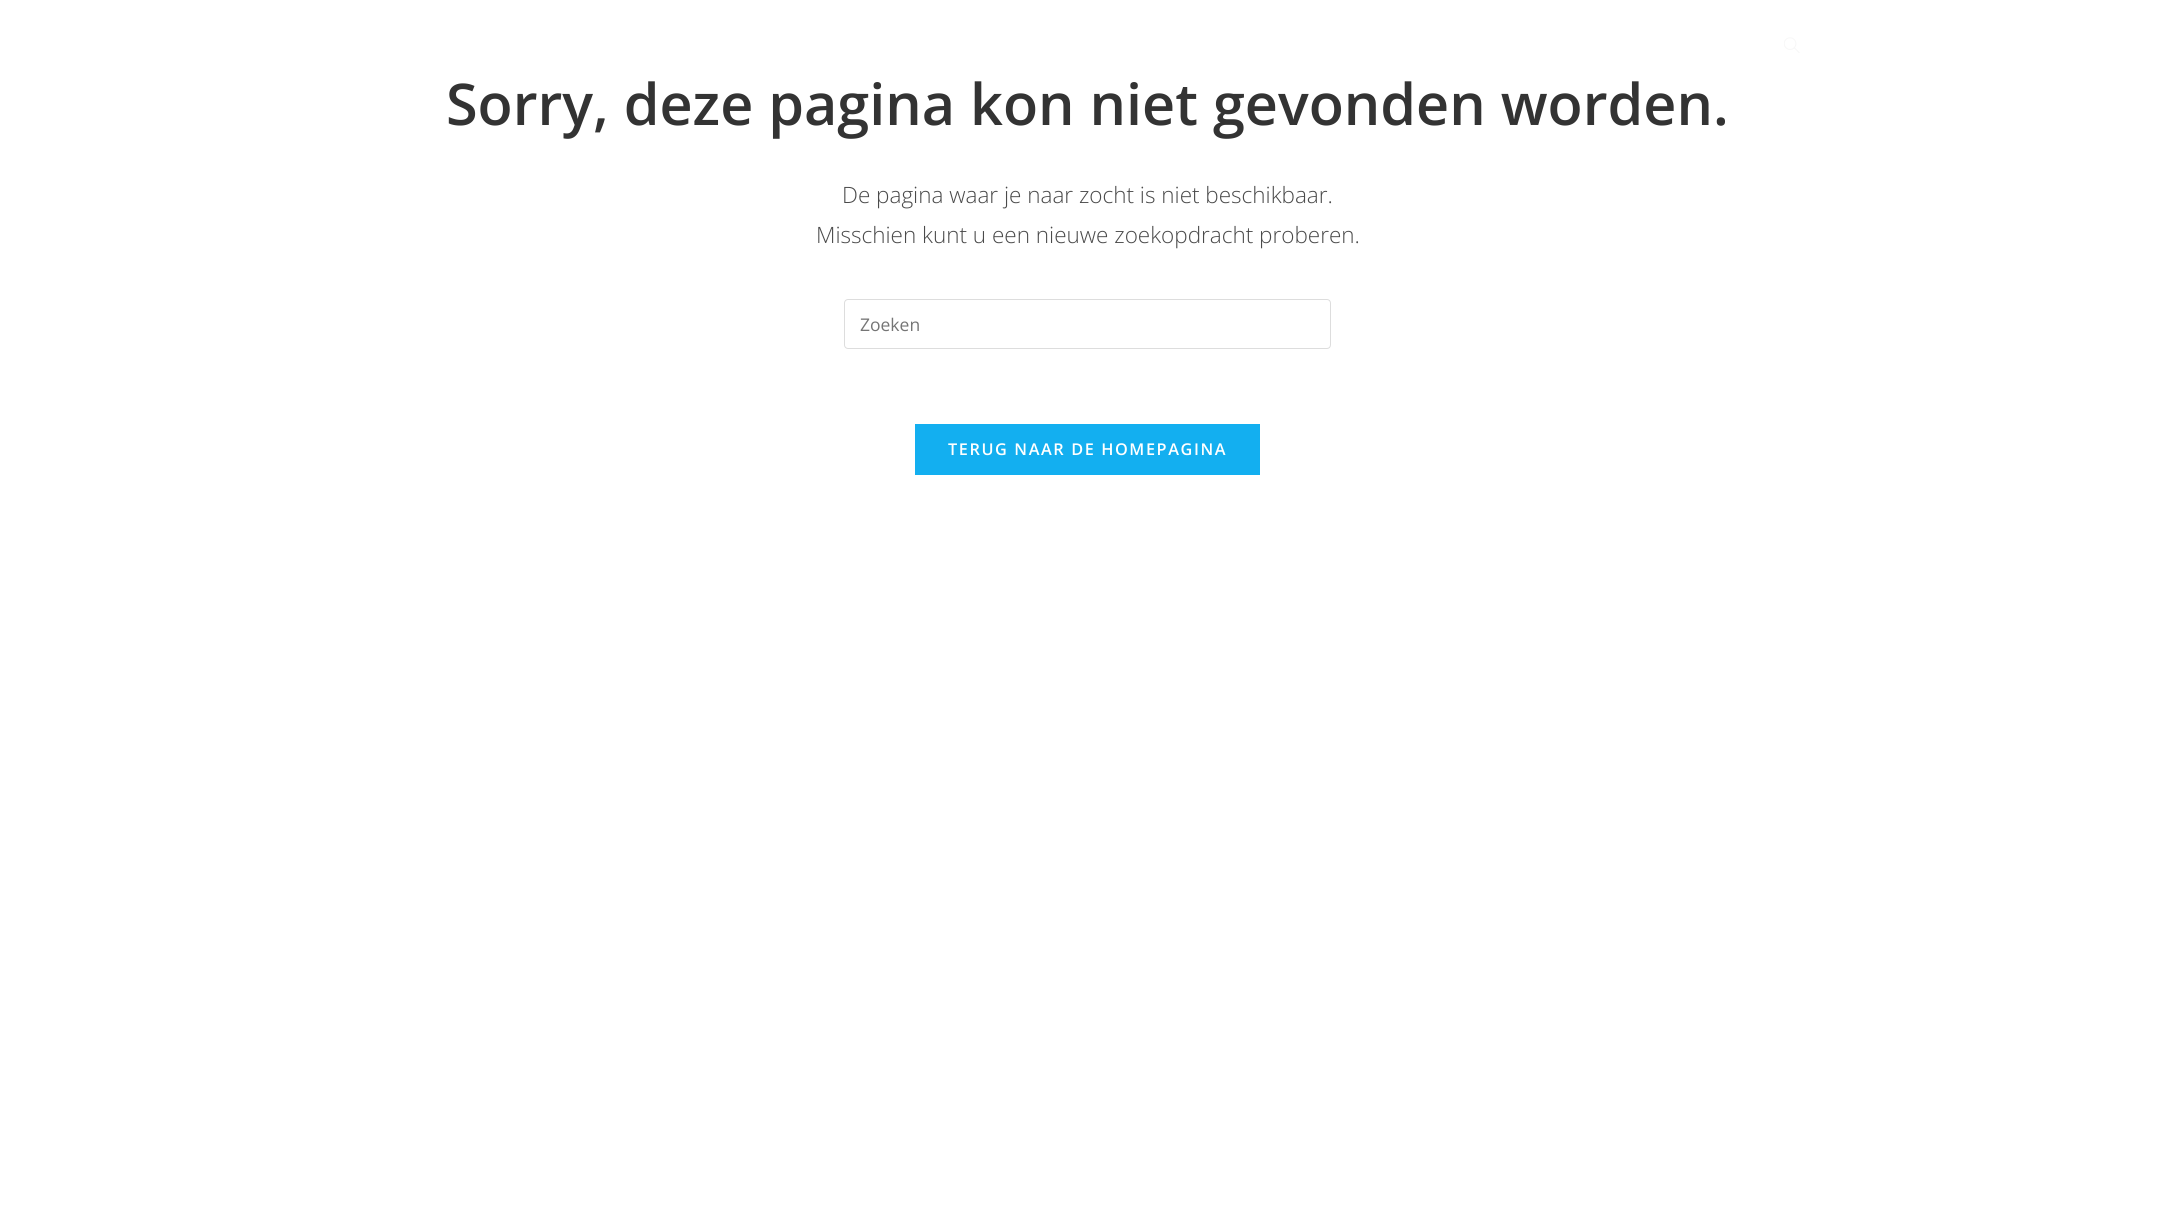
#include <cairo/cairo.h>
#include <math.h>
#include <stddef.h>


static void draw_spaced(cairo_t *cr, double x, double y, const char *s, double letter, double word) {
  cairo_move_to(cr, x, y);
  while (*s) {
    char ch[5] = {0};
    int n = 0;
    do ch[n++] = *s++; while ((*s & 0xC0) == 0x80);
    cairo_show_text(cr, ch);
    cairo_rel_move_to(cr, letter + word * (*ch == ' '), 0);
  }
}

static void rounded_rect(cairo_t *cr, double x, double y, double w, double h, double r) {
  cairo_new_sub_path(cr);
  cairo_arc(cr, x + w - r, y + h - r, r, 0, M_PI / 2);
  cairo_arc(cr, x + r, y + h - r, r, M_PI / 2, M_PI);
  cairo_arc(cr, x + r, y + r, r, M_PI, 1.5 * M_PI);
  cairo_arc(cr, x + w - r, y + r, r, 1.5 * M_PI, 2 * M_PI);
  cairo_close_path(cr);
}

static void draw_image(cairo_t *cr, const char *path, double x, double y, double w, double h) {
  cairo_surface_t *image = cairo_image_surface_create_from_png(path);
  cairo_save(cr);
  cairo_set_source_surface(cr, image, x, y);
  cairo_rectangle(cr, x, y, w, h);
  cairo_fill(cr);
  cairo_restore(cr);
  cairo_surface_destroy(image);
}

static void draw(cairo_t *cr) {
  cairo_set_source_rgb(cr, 1, 1, 1);
  cairo_paint(cr);
  draw_image(cr, "images/1.png", 1784, 37, 16, 16);
  rounded_rect(cr, 844.5, 299.5, 486, 49, 3.5);
  cairo_set_source_rgb(cr, 221 / 255.0, 221 / 255.0, 221 / 255.0);
  cairo_set_line_width(cr, 1);
  cairo_stroke(cr);
  cairo_set_source_rgb(cr, 19 / 255.0, 175 / 255.0, 240 / 255.0);
  cairo_rectangle(cr, 915, 424, 345, 51);
  cairo_fill(cr);
  cairo_select_font_face(cr, "Open Sans SemiBold", CAIRO_FONT_SLANT_NORMAL, CAIRO_FONT_WEIGHT_NORMAL);
  cairo_set_font_size(cr, 57.5);
  cairo_set_source_rgb(cr, 51 / 255.0, 51 / 255.0, 51 / 255.0);
  cairo_move_to(cr, 446, 125);
  cairo_show_text(cr, "Sorry, deze pagina kon niet gevonden worden.");
  cairo_select_font_face(cr, "Open Sans Light", CAIRO_FONT_SLANT_NORMAL, CAIRO_FONT_WEIGHT_NORMAL);
  cairo_set_font_size(cr, 22.5);
  cairo_set_source_rgb(cr, 74 / 255.0, 74 / 255.0, 74 / 255.0);
  cairo_move_to(cr, 842, 203);
  cairo_show_text(cr, "De pagina waar je naar zocht is niet beschikbaar.");
  cairo_move_to(cr, 816, 243);
  cairo_show_text(cr, "Misschien kunt u een nieuwe zoekopdracht proberen.");
  cairo_select_font_face(cr, "Open Sans", CAIRO_FONT_SLANT_NORMAL, CAIRO_FONT_WEIGHT_NORMAL);
  cairo_set_font_size(cr, 17.5);
  cairo_set_source_rgb(cr, 117 / 255.0, 117 / 255.0, 117 / 255.0);
  cairo_move_to(cr, 860, 331);
  cairo_show_text(cr, "Zoeken");
  cairo_select_font_face(cr, "Open Sans SemiBold", CAIRO_FONT_SLANT_NORMAL, CAIRO_FONT_WEIGHT_NORMAL);
  cairo_set_font_size(cr, 16.25);
  cairo_set_source_rgb(cr, 1, 1, 1);
  draw_spaced(cr, 948, 455, "TERUG NAAR DE HOMEPAGINA", 1.6, 0);
}

int main(void) {
  cairo_surface_t *surface = cairo_image_surface_create(CAIRO_FORMAT_RGB24, 2175, 1226);
  cairo_t *cr = cairo_create(surface);
  cairo_font_options_t *options = cairo_font_options_create();
  cairo_font_options_set_hint_metrics(options, CAIRO_HINT_METRICS_OFF);
  cairo_font_options_set_hint_style(options, CAIRO_HINT_STYLE_NONE);
  cairo_set_font_options(cr, options);
  cairo_set_miter_limit(cr, 4);
  draw(cr);
  cairo_surface_write_to_png(surface, "out.png");
  cairo_font_options_destroy(options);
  cairo_destroy(cr);
  cairo_surface_destroy(surface);
  return 0;
}
